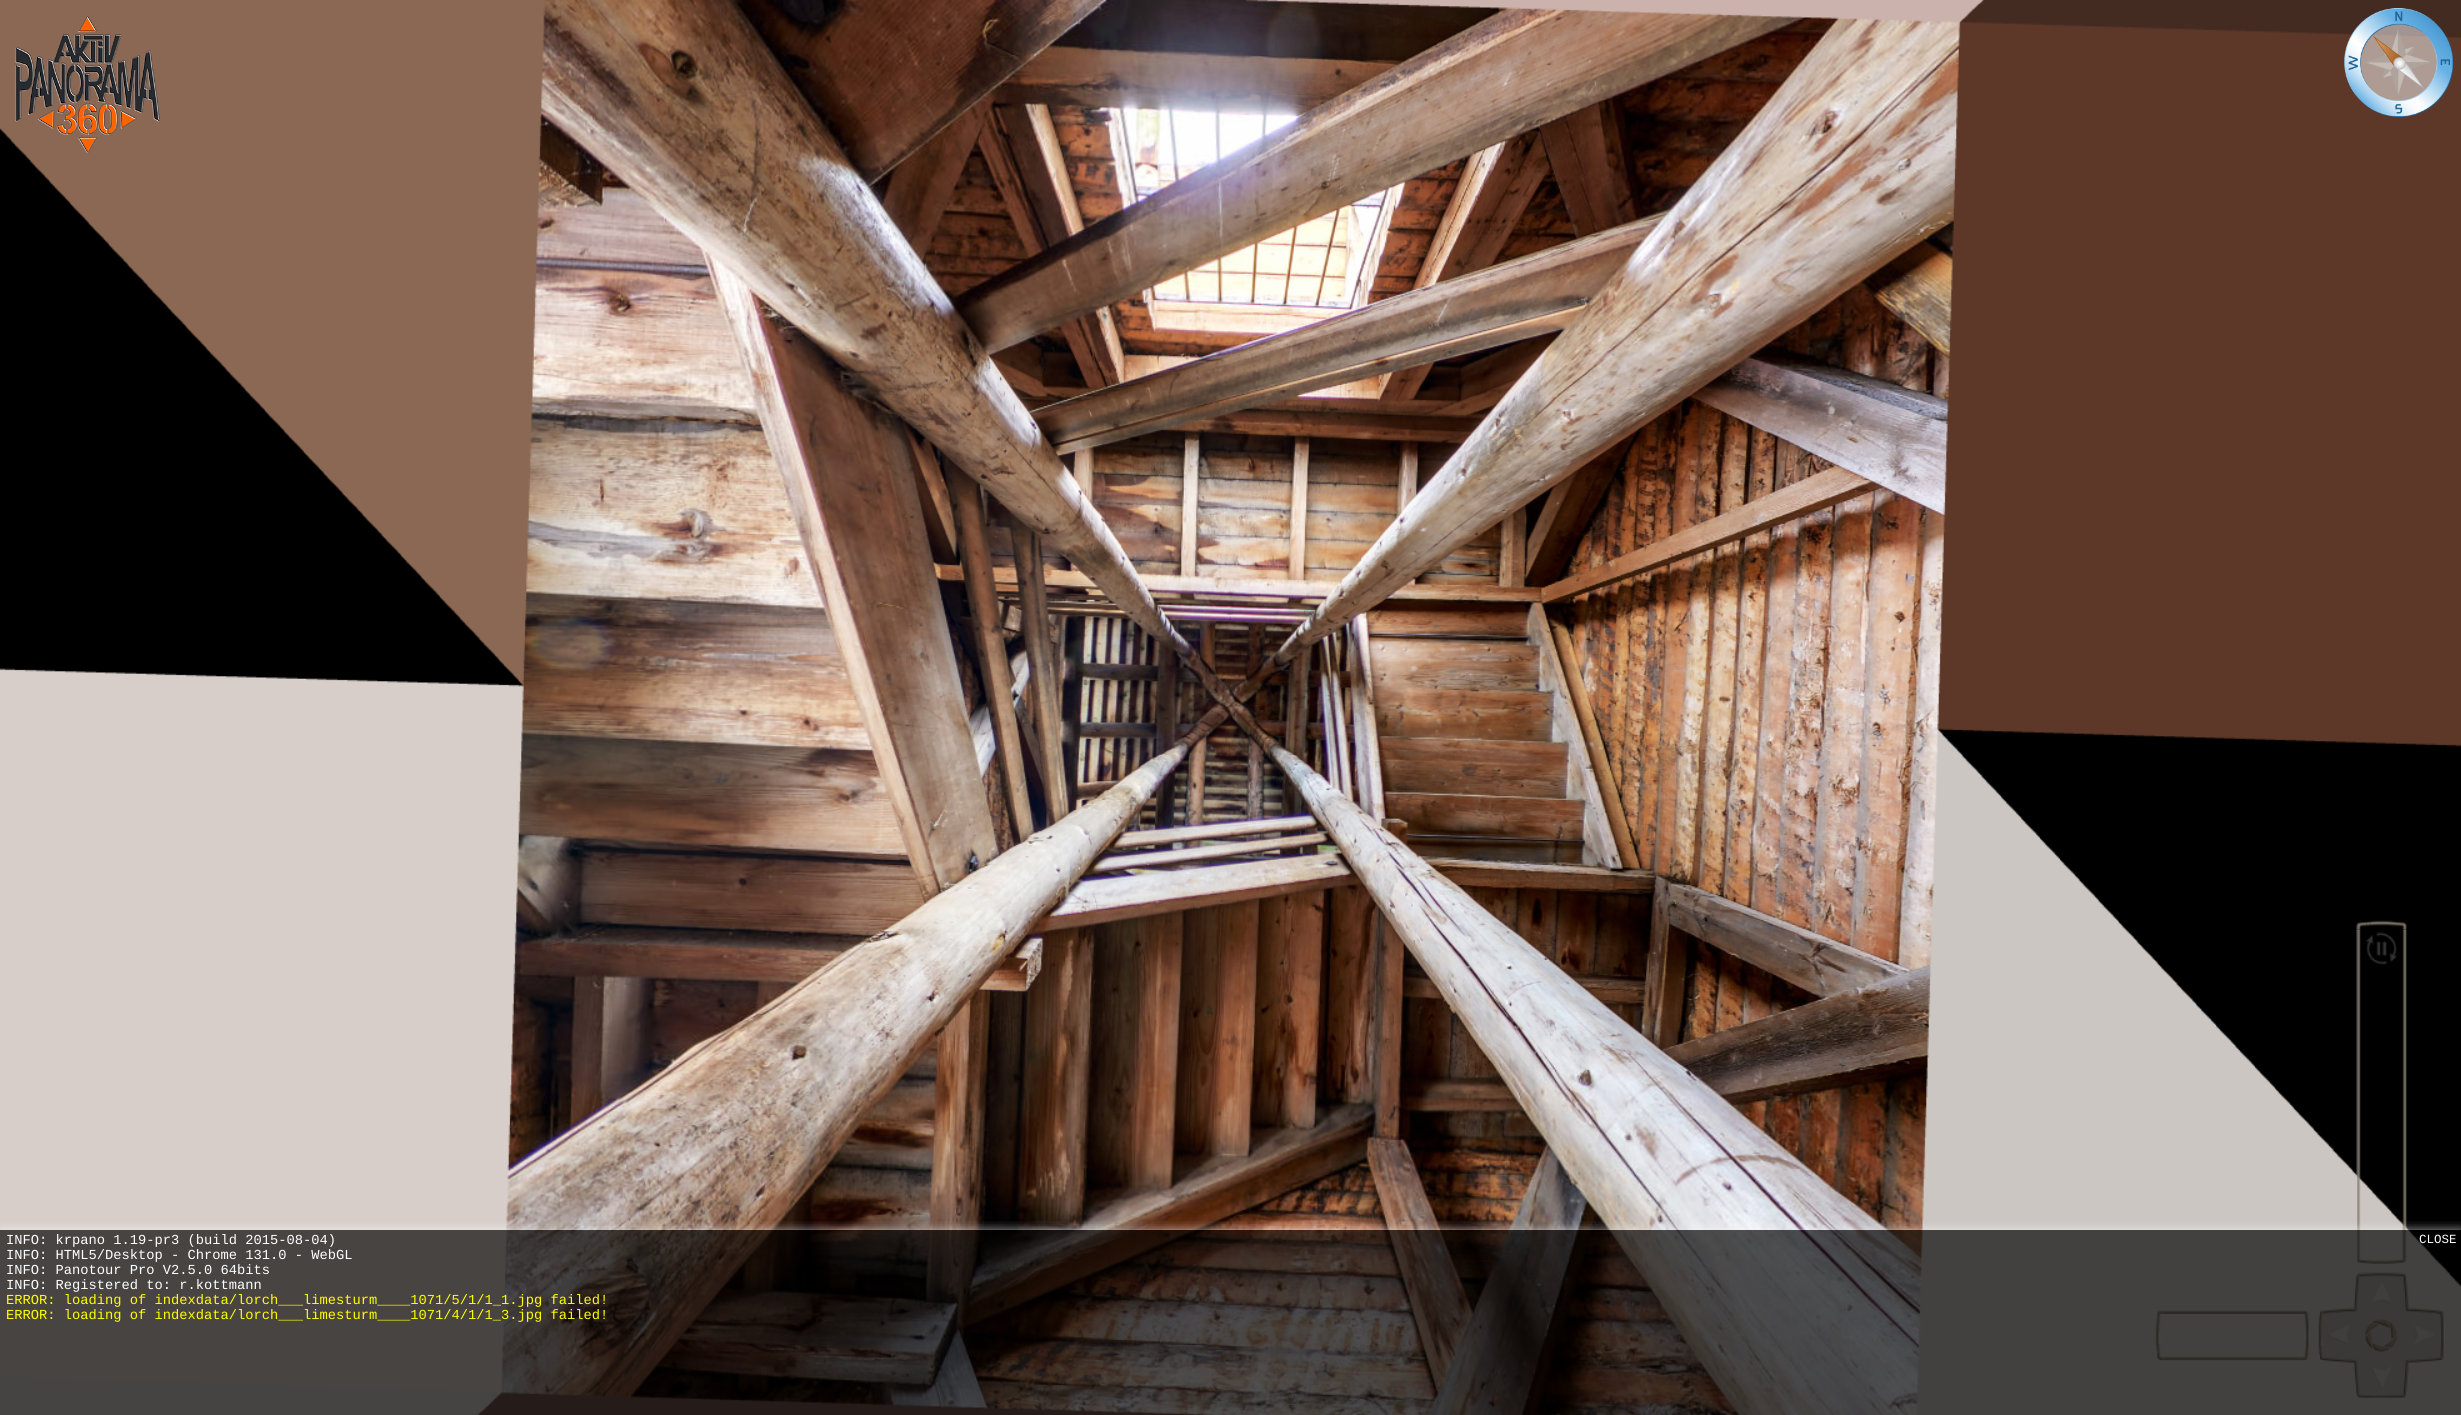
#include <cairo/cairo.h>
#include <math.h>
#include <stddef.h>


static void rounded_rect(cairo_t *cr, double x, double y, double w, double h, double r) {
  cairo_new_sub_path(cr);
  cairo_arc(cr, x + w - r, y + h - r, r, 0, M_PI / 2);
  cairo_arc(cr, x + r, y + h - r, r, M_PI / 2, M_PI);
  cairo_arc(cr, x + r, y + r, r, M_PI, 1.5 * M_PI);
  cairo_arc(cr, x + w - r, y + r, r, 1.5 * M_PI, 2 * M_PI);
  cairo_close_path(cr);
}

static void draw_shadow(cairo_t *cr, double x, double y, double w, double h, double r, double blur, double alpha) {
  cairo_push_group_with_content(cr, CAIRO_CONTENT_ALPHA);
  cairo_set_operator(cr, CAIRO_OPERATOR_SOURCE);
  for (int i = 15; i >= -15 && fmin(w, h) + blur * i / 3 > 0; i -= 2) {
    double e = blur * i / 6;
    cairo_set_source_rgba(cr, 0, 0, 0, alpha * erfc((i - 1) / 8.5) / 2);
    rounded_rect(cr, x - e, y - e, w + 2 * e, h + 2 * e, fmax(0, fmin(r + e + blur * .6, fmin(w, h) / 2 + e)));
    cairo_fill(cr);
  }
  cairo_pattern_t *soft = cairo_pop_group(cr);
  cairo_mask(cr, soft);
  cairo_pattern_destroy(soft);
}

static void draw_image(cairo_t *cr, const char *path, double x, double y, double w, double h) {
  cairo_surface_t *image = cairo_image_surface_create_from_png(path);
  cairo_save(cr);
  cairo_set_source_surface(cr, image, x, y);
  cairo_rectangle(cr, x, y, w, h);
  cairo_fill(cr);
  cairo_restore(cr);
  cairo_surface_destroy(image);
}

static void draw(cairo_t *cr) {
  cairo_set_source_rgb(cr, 1, 1, 1);
  cairo_paint(cr);
  draw_image(cr, "images/1.png", 0, 0, 2461, 1415);
  draw_image(cr, "images/2.png", 15, 15, 145, 139);
  draw_image(cr, "images/3.png", 2344, 8, 110, 109);
  draw_image(cr, "images/4.png", 2373, 36, 52, 53);
  draw_image(cr, "images/5.png", 2356, 922, 11, 9);
  draw_image(cr, "images/6.png", 2366, 921, 5, 6);
  draw_image(cr, "images/7.png", 2369, 920, 38, 11);
  draw_image(cr, "images/8.png", 2356, 930, 5, 325);
  draw_image(cr, "images/9.png", 2366, 932, 31, 33);
  draw_image(cr, "images/10.png", 2402, 930, 5, 325);
  draw_image(cr, "images/11.png", 2357, 1255, 10, 9);
  draw_image(cr, "images/12.png", 2366, 1259, 5, 6);
  draw_image(cr, "images/13.png", 2369, 1255, 38, 9);
  draw_image(cr, "images/28.png", 2321, 1274, 122, 122);
  draw_image(cr, "images/14.png", 2318, 1272, 127, 126);
  draw_image(cr, "images/15.png", 2373, 1281, 18, 23);
  draw_image(cr, "images/16.png", 2328, 1325, 22, 20);
  draw_image(cr, "images/17.png", 2365, 1318, 33, 34);
  draw_image(cr, "images/18.png", 2414, 1325, 21, 19);
  draw_image(cr, "images/19.png", 2371, 1366, 21, 23);
  draw_image(cr, "images/20.png", 2156, 1310, 9, 10);
  draw_image(cr, "images/21.png", 2163, 1310, 139, 4);
  draw_image(cr, "images/22.png", 2301, 1310, 9, 10);
  draw_image(cr, "images/23.png", 2156, 1320, 5, 4);
  draw_image(cr, "images/24.png", 2304, 1320, 6, 4);
  draw_image(cr, "images/25.png", 2155, 1323, 10, 38);
  draw_image(cr, "images/26.png", 2163, 1356, 139, 5);
  draw_image(cr, "images/27.png", 2301, 1323, 9, 38);
  cairo_save(cr);
  cairo_rectangle(cr, 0, 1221, 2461, 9);
  cairo_clip(cr);
  draw_shadow(cr, 0, 1230, 2461, 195, 0, 5, 0.67);
  cairo_restore(cr);
  cairo_set_source_rgba(cr, 0, 0, 0, 0.67);
  cairo_rectangle(cr, 0, 1230, 2461, 185);
  cairo_fill(cr);
  cairo_select_font_face(cr, "Liberation Mono", CAIRO_FONT_SLANT_NORMAL, CAIRO_FONT_WEIGHT_NORMAL);
  cairo_set_font_size(cr, 13.75);
  cairo_set_source_rgb(cr, 1, 1, 1);
  cairo_move_to(cr, 6, 1244);
  cairo_show_text(cr, "INFO: krpano 1.19-pr3 (build 2015-08-04)");
  cairo_move_to(cr, 6, 1259);
  cairo_show_text(cr, "INFO: HTML5/Desktop - Chrome 131.0 - WebGL");
  cairo_move_to(cr, 6, 1274);
  cairo_show_text(cr, "INFO: Panotour Pro V2.5.0 64bits");
  cairo_move_to(cr, 6, 1289);
  cairo_show_text(cr, "INFO: Registered to: r.kottmann");
  cairo_set_source_rgb(cr, 1, 1, 0);
  cairo_move_to(cr, 6, 1304);
  cairo_show_text(cr, "ERROR: loading of indexdata/lorch___limesturm____1071/5/1/1_1.jpg failed!");
  cairo_move_to(cr, 6, 1319);
  cairo_show_text(cr, "ERROR: loading of indexdata/lorch___limesturm____1071/4/1/1_3.jpg failed!");
  cairo_set_font_size(cr, 12.5);
  cairo_set_source_rgb(cr, 1, 1, 1);
  cairo_move_to(cr, 2419, 1243);
  cairo_show_text(cr, "CLOSE");
}

int main(void) {
  cairo_surface_t *surface = cairo_image_surface_create(CAIRO_FORMAT_RGB24, 2461, 1415);
  cairo_t *cr = cairo_create(surface);
  cairo_font_options_t *options = cairo_font_options_create();
  cairo_font_options_set_hint_metrics(options, CAIRO_HINT_METRICS_OFF);
  cairo_font_options_set_hint_style(options, CAIRO_HINT_STYLE_NONE);
  cairo_set_font_options(cr, options);
  cairo_set_miter_limit(cr, 4);
  draw(cr);
  cairo_surface_write_to_png(surface, "out.png");
  cairo_font_options_destroy(options);
  cairo_destroy(cr);
  cairo_surface_destroy(surface);
  return 0;
}
